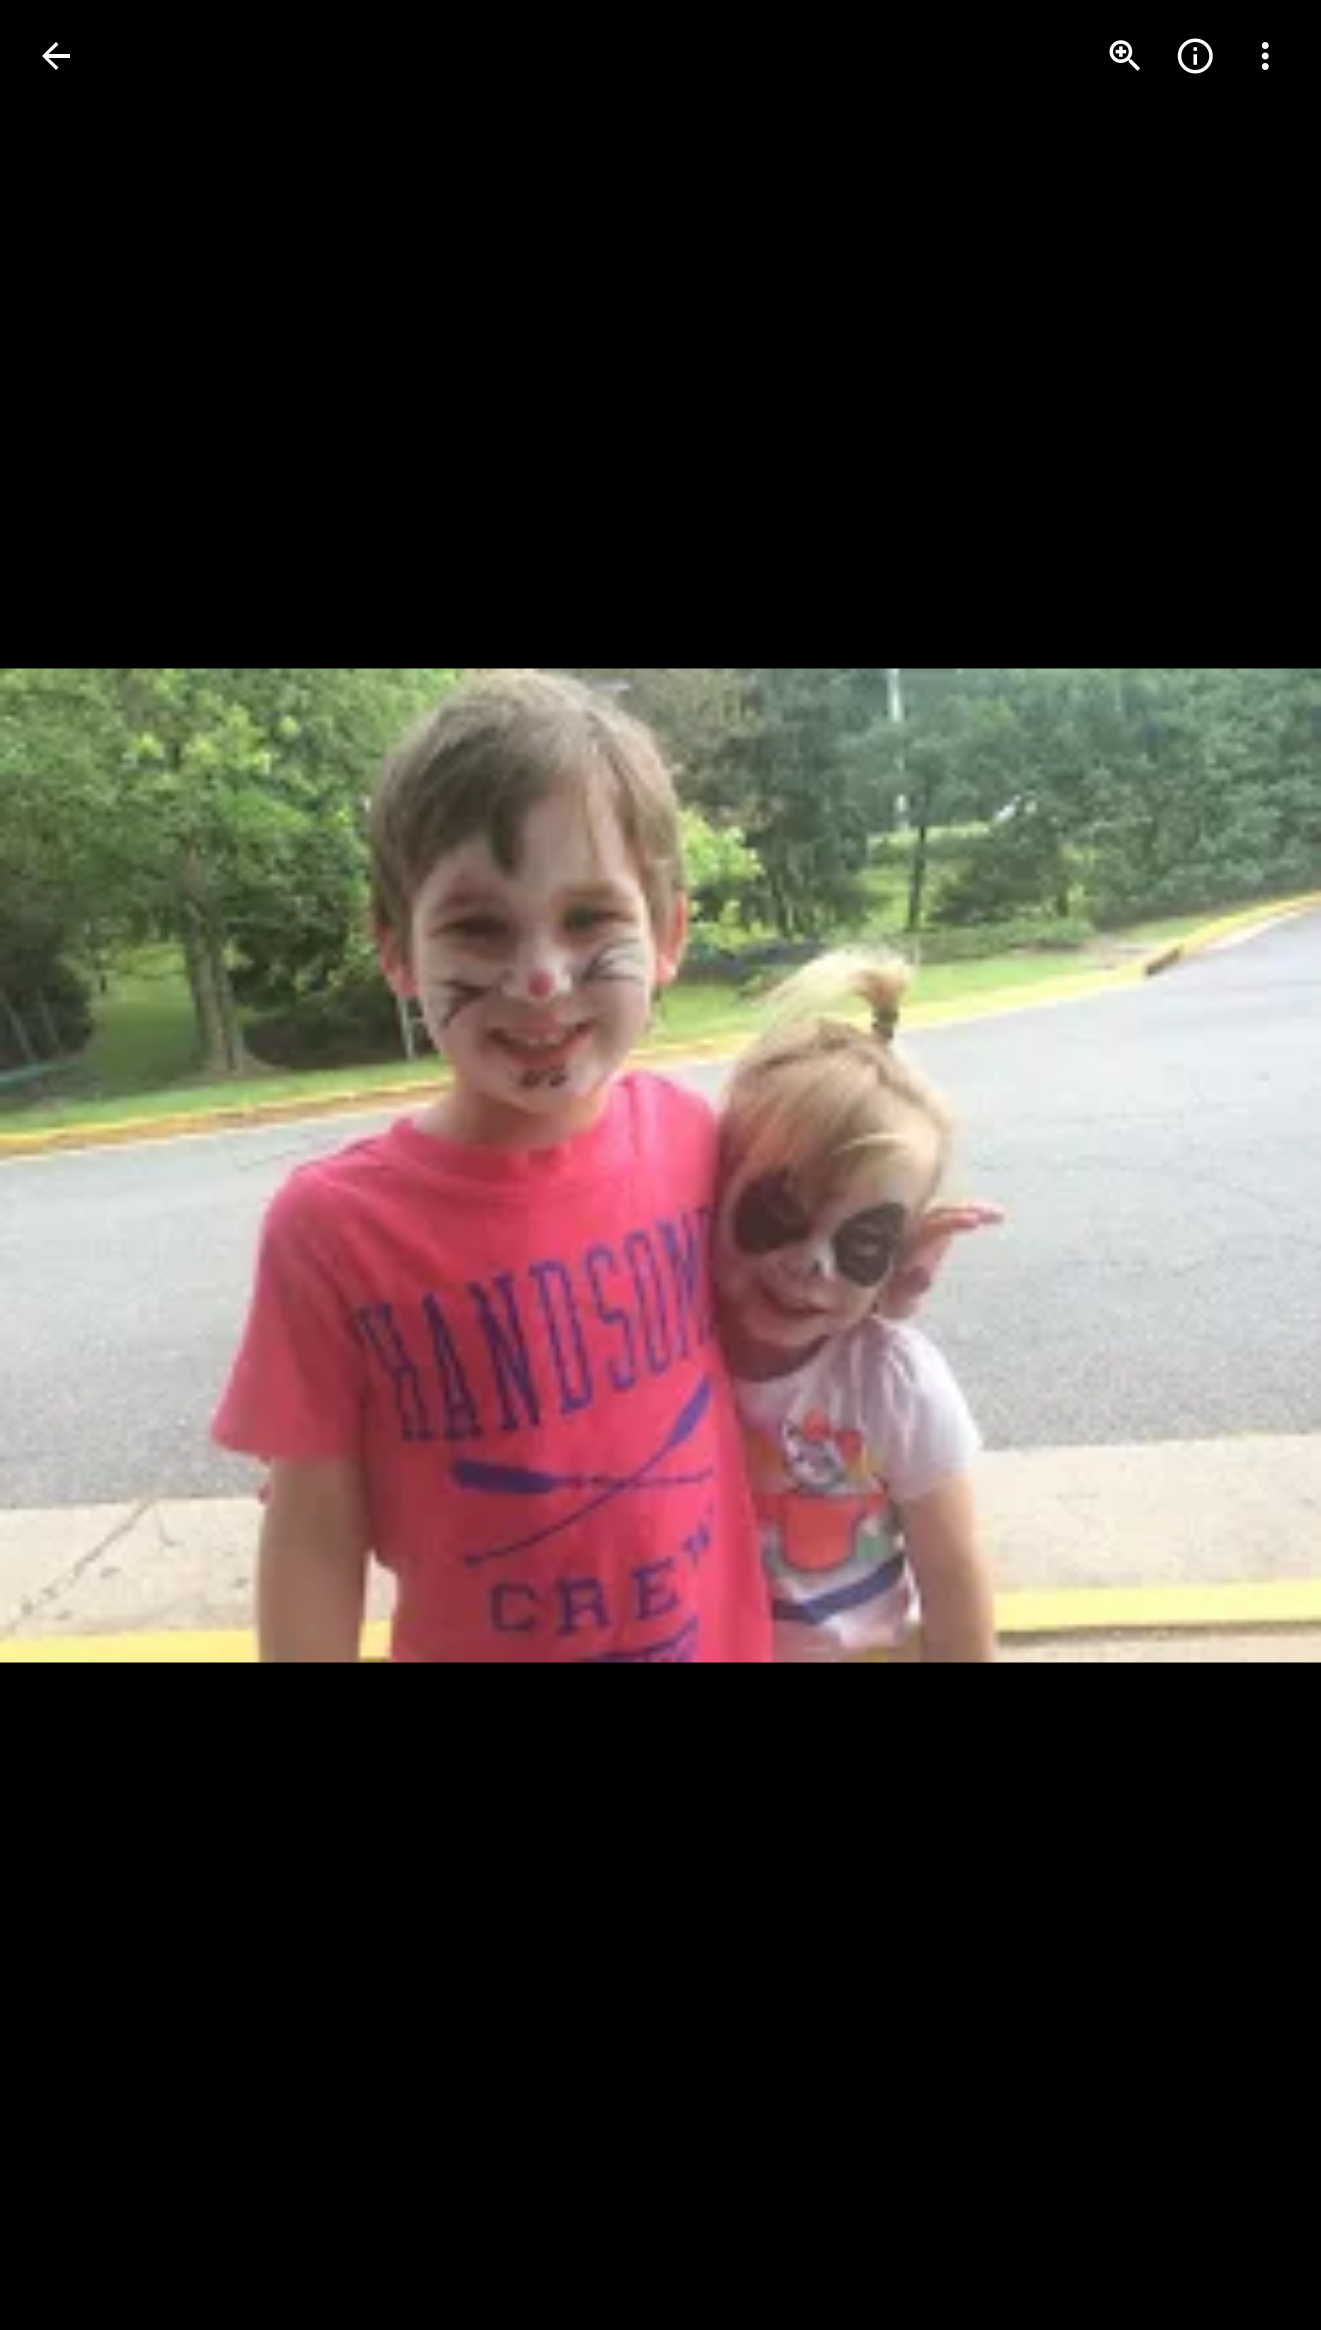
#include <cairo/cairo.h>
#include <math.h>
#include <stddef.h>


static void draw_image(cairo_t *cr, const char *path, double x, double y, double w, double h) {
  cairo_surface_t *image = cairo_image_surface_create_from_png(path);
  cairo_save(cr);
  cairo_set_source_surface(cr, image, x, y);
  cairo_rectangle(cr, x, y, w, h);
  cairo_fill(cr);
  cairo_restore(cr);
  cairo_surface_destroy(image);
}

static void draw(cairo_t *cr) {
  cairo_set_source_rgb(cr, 0, 0, 0);
  cairo_paint(cr);
  cairo_set_source_rgb(cr, 1, 1, 1);
  cairo_new_path(cr);
  cairo_move_to(cr, 70, 54);
  cairo_line_to(cr, 48.5, 54);
  cairo_line_to(cr, 58.5, 44.5);
  cairo_line_to(cr, 56, 42);
  cairo_line_to(cr, 42, 56);
  cairo_line_to(cr, 56, 70);
  cairo_line_to(cr, 58.5, 67.5);
  cairo_line_to(cr, 48.5, 58);
  cairo_line_to(cr, 70, 58);
  cairo_close_path(cr);
  cairo_fill(cr);
  draw_image(cr, "images/1.png", 1109, 40, 31, 31);
  draw_image(cr, "images/2.png", 1177, 38, 36, 36);
  draw_image(cr, "images/3.png", 1261, 42, 8, 28);
  draw_image(cr, "images/4.png", 0, 668, 1321, 995);
}

int main(void) {
  cairo_surface_t *surface = cairo_image_surface_create(CAIRO_FORMAT_RGB24, 1321, 2330);
  cairo_t *cr = cairo_create(surface);
  cairo_font_options_t *options = cairo_font_options_create();
  cairo_font_options_set_hint_metrics(options, CAIRO_HINT_METRICS_OFF);
  cairo_font_options_set_hint_style(options, CAIRO_HINT_STYLE_NONE);
  cairo_set_font_options(cr, options);
  cairo_set_miter_limit(cr, 4);
  draw(cr);
  cairo_surface_write_to_png(surface, "out.png");
  cairo_font_options_destroy(options);
  cairo_destroy(cr);
  cairo_surface_destroy(surface);
  return 0;
}
